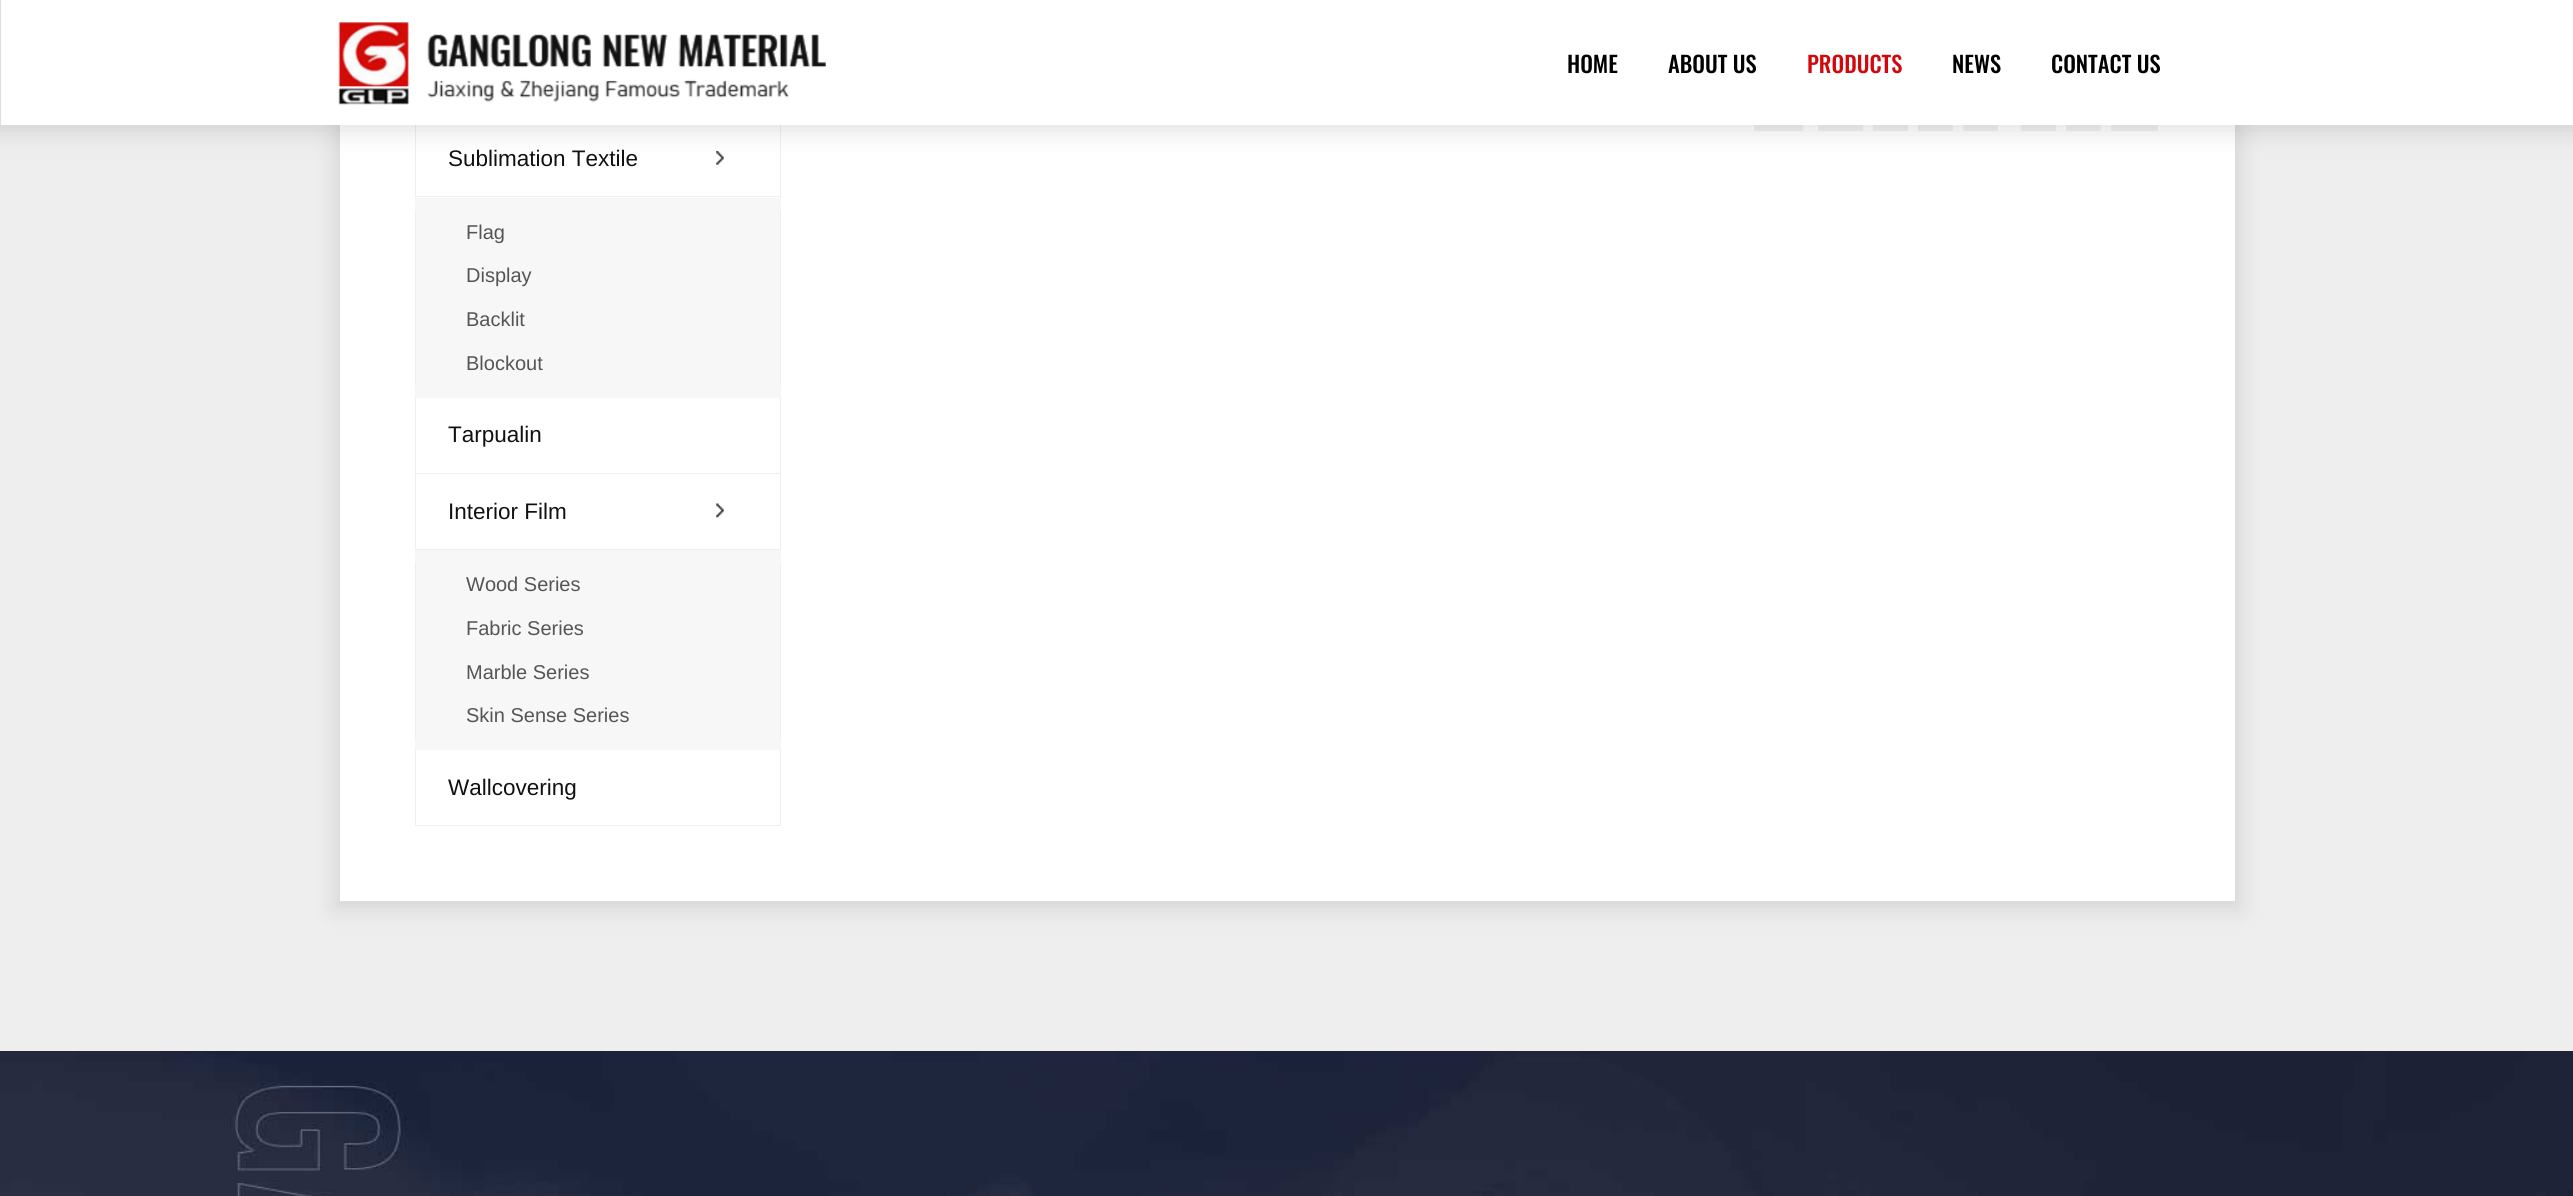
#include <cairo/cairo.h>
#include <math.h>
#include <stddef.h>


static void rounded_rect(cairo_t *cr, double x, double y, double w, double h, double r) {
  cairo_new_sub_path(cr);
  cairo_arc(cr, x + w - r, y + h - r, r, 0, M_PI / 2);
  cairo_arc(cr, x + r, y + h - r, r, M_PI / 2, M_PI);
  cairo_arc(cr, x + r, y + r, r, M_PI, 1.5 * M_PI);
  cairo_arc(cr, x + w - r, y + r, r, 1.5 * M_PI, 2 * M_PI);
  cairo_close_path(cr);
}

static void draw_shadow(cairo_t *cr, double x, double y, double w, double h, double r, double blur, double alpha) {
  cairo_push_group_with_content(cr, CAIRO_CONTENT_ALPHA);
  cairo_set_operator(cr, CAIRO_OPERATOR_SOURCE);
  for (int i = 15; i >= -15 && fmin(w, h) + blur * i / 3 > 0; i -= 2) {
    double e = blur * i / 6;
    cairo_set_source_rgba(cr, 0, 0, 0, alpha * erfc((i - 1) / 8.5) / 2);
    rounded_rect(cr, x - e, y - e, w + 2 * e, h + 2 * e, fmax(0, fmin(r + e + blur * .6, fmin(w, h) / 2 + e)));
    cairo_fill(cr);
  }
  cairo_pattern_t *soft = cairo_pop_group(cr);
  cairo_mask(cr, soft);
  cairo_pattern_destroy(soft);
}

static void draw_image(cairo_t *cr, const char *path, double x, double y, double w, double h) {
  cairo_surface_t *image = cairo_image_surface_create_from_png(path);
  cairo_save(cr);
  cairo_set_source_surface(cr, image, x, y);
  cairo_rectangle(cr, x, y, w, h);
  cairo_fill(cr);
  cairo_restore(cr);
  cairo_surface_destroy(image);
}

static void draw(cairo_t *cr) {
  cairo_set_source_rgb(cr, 238 / 255.0, 238 / 255.0, 238 / 255.0);
  cairo_paint(cr);
  cairo_set_source_rgb(cr, 0, 0, 0);
  draw_shadow(cr, 334, -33, 1907, 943, 0, 11, 0.1);
  cairo_set_source_rgb(cr, 1, 1, 1);
  cairo_rectangle(cr, 340, 125, 1895, 776);
  cairo_fill(cr);
  cairo_set_source_rgb(cr, 240 / 255.0, 240 / 255.0, 240 / 255.0);
  cairo_rectangle(cr, 1754, 125, 49, 6);
  cairo_fill(cr);
  cairo_rectangle(cr, 1818, 125, 45, 6);
  cairo_fill(cr);
  cairo_rectangle(cr, 1873, 125, 35, 6);
  cairo_fill(cr);
  cairo_rectangle(cr, 1918, 125, 35, 6);
  cairo_fill(cr);
  cairo_rectangle(cr, 1963, 125, 35, 6);
  cairo_fill(cr);
  cairo_rectangle(cr, 2021, 125, 35, 6);
  cairo_fill(cr);
  cairo_rectangle(cr, 2066, 125, 35, 6);
  cairo_fill(cr);
  cairo_rectangle(cr, 2111, 125, 47, 6);
  cairo_fill(cr);
  cairo_set_source_rgb(cr, 238 / 255.0, 238 / 255.0, 238 / 255.0);
  cairo_rectangle(cr, 780, 121, 1, 77);
  cairo_fill(cr);
  cairo_rectangle(cr, 415, 196, 366, 1);
  cairo_fill(cr);
  cairo_rectangle(cr, 415, 121, 1, 77);
  cairo_fill(cr);
  draw_image(cr, "images/2.png", 716, 151, 8, 14);
  cairo_set_source_rgb(cr, 0, 0, 0);
  draw_shadow(cr, -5, -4, 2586, 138, 0, 11, 0.1);
  cairo_set_source_rgb(cr, 1, 1, 1);
  cairo_rectangle(cr, 1, 0, 2572, 125);
  cairo_fill(cr);
  draw_image(cr, "images/1.png", 338, 22, 488, 83);
  cairo_set_source_rgb(cr, 247 / 255.0, 247 / 255.0, 247 / 255.0);
  cairo_rectangle(cr, 415, 198, 366, 200);
  cairo_fill(cr);
  cairo_set_source_rgb(cr, 238 / 255.0, 238 / 255.0, 238 / 255.0);
  cairo_rectangle(cr, 780, 210, 1, 175);
  cairo_fill(cr);
  cairo_rectangle(cr, 415, 210, 1, 175);
  cairo_fill(cr);
  cairo_rectangle(cr, 780, 398, 1, 152);
  cairo_fill(cr);
  cairo_rectangle(cr, 415, 473, 366, 1);
  cairo_fill(cr);
  cairo_rectangle(cr, 415, 398, 1, 76);
  cairo_fill(cr);
  cairo_rectangle(cr, 415, 549, 366, 1);
  cairo_fill(cr);
  cairo_rectangle(cr, 415, 474, 1, 76);
  cairo_fill(cr);
  draw_image(cr, "images/3.png", 716, 503, 8, 15);
  cairo_set_source_rgb(cr, 247 / 255.0, 247 / 255.0, 247 / 255.0);
  cairo_rectangle(cr, 415, 550, 366, 200);
  cairo_fill(cr);
  cairo_set_source_rgb(cr, 238 / 255.0, 238 / 255.0, 238 / 255.0);
  cairo_rectangle(cr, 780, 563, 1, 175);
  cairo_fill(cr);
  cairo_rectangle(cr, 415, 563, 1, 175);
  cairo_fill(cr);
  cairo_rectangle(cr, 780, 750, 1, 76);
  cairo_fill(cr);
  cairo_rectangle(cr, 415, 825, 366, 1);
  cairo_fill(cr);
  cairo_rectangle(cr, 415, 750, 1, 76);
  cairo_fill(cr);
  draw_image(cr, "images/4.png", 0, 1051, 2573, 145);
  cairo_select_font_face(cr, "Oswald Medium", CAIRO_FONT_SLANT_NORMAL, CAIRO_FONT_WEIGHT_NORMAL);
  cairo_set_font_size(cr, 22.5);
  cairo_set_source_rgb(cr, 0, 0, 0);
  cairo_move_to(cr, 1567, 73);
  cairo_show_text(cr, "HOME");
  cairo_move_to(cr, 1668, 73);
  cairo_show_text(cr, "ABOUT US");
  cairo_set_source_rgb(cr, 209 / 255.0, 8 / 255.0, 12 / 255.0);
  cairo_move_to(cr, 1807, 73);
  cairo_show_text(cr, "PRODUCTS");
  cairo_set_source_rgb(cr, 0, 0, 0);
  cairo_move_to(cr, 1952, 73);
  cairo_show_text(cr, "NEWS");
  cairo_move_to(cr, 2051, 73);
  cairo_show_text(cr, "CONTACT US");
  cairo_select_font_face(cr, "Liberation Sans", CAIRO_FONT_SLANT_NORMAL, CAIRO_FONT_WEIGHT_NORMAL);
  cairo_set_source_rgb(cr, 16 / 255.0, 18 / 255.0, 16 / 255.0);
  cairo_move_to(cr, 448, 166);
  cairo_show_text(cr, "Sublimation Textile");
  cairo_set_font_size(cr, 20);
  cairo_set_source_rgb(cr, 85 / 255.0, 85 / 255.0, 85 / 255.0);
  cairo_move_to(cr, 466, 239);
  cairo_show_text(cr, "Flag");
  cairo_move_to(cr, 466, 282);
  cairo_show_text(cr, "Display");
  cairo_move_to(cr, 466, 326);
  cairo_show_text(cr, "Backlit");
  cairo_move_to(cr, 466, 370);
  cairo_show_text(cr, "Blockout");
  cairo_set_font_size(cr, 22.5);
  cairo_set_source_rgb(cr, 16 / 255.0, 18 / 255.0, 16 / 255.0);
  cairo_move_to(cr, 448, 442);
  cairo_show_text(cr, "Tarpualin");
  cairo_move_to(cr, 448, 519);
  cairo_show_text(cr, "Interior Film");
  cairo_set_font_size(cr, 20);
  cairo_set_source_rgb(cr, 85 / 255.0, 85 / 255.0, 85 / 255.0);
  cairo_move_to(cr, 466, 591);
  cairo_show_text(cr, "Wood Series");
  cairo_move_to(cr, 466, 635);
  cairo_show_text(cr, "Fabric Series");
  cairo_move_to(cr, 466, 679);
  cairo_show_text(cr, "Marble Series");
  cairo_move_to(cr, 466, 722);
  cairo_show_text(cr, "Skin Sense Series");
  cairo_set_font_size(cr, 22.5);
  cairo_set_source_rgb(cr, 16 / 255.0, 18 / 255.0, 16 / 255.0);
  cairo_move_to(cr, 448, 795);
  cairo_show_text(cr, "Wallcovering");
}

int main(void) {
  cairo_surface_t *surface = cairo_image_surface_create(CAIRO_FORMAT_RGB24, 2573, 1196);
  cairo_t *cr = cairo_create(surface);
  cairo_font_options_t *options = cairo_font_options_create();
  cairo_font_options_set_hint_metrics(options, CAIRO_HINT_METRICS_OFF);
  cairo_font_options_set_hint_style(options, CAIRO_HINT_STYLE_NONE);
  cairo_set_font_options(cr, options);
  cairo_set_miter_limit(cr, 4);
  draw(cr);
  cairo_surface_write_to_png(surface, "out.png");
  cairo_font_options_destroy(options);
  cairo_destroy(cr);
  cairo_surface_destroy(surface);
  return 0;
}
